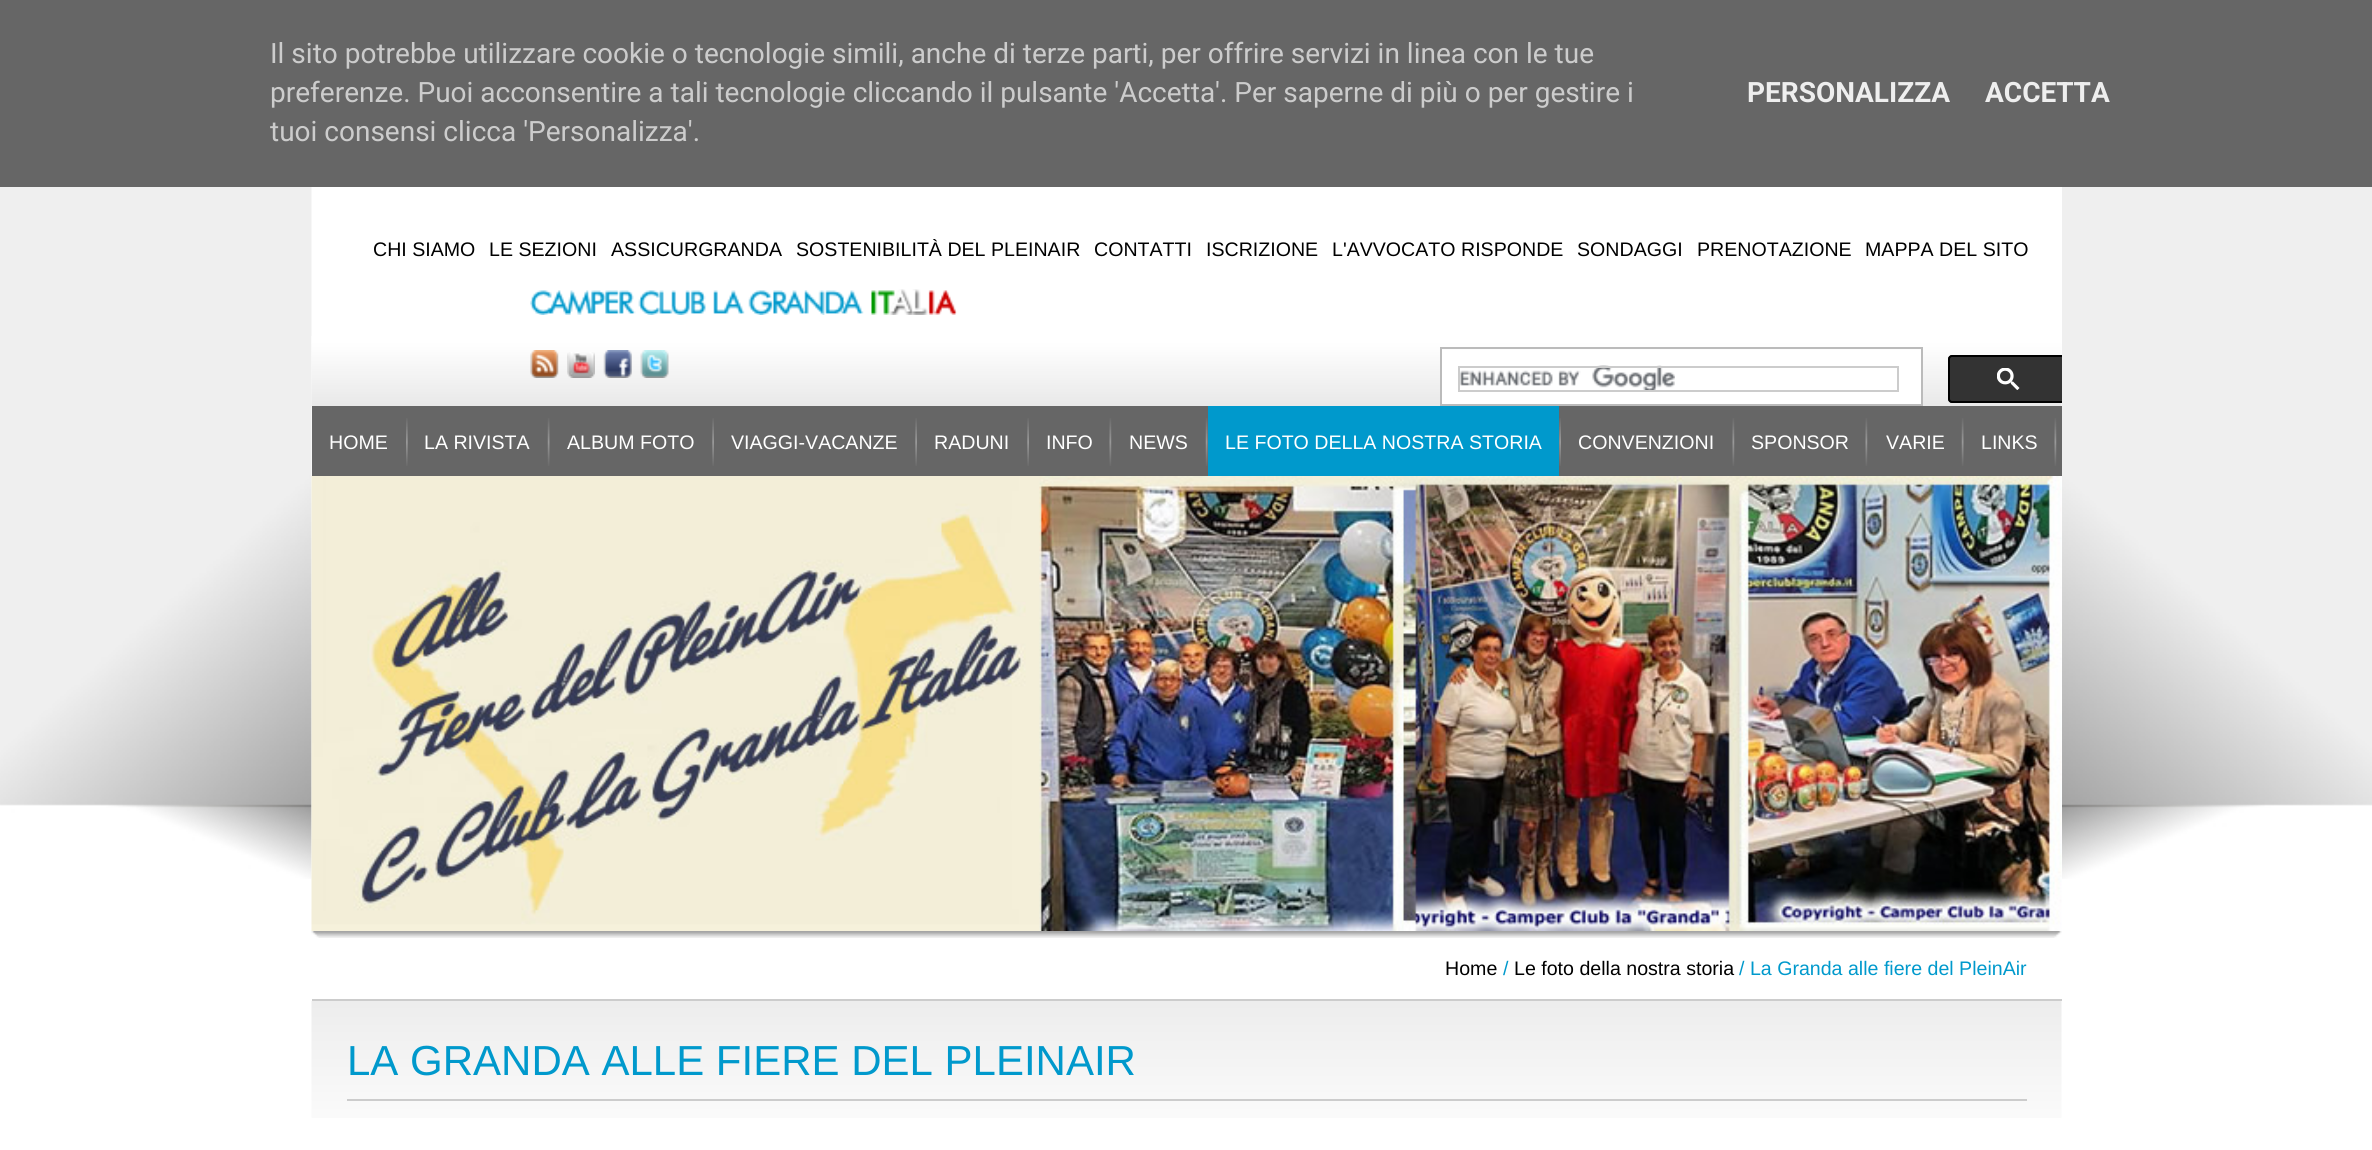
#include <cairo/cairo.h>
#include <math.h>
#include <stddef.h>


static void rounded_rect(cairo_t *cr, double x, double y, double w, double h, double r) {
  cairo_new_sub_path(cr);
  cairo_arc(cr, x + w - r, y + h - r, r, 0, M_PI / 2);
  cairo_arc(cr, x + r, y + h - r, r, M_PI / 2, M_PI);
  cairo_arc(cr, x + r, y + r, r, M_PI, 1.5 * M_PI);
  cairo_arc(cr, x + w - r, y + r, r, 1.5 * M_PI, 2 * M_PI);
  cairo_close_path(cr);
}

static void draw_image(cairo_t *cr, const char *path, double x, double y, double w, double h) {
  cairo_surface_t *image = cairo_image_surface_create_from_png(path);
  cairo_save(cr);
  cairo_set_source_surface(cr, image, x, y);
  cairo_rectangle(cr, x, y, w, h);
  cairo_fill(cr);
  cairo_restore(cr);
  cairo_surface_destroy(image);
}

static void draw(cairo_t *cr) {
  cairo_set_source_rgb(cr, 1, 1, 1);
  cairo_paint(cr);
  draw_image(cr, "images/1.png", 0, 187, 2372, 692);
  cairo_set_source_rgb(cr, 102 / 255.0, 102 / 255.0, 102 / 255.0);
  cairo_rectangle(cr, 0, 0, 2372, 187);
  cairo_fill(cr);
  cairo_set_source_rgb(cr, 1, 1, 1);
  cairo_rectangle(cr, 2061, 187, 1, 692);
  cairo_fill(cr);
  draw_image(cr, "images/2.png", 311, 336, 1751, 70);
  draw_image(cr, "images/3.png", 530, 289, 427, 26);
  draw_image(cr, "images/4.png", 530, 350, 29, 28);
  draw_image(cr, "images/5.png", 567, 352, 28, 26);
  draw_image(cr, "images/6.png", 603, 350, 29, 28);
  draw_image(cr, "images/7.png", 640, 350, 29, 28);
  cairo_rectangle(cr, 1442, 350, 479, 54);
  cairo_fill(cr);
  cairo_rectangle(cr, 1441, 348, 481, 57);
  cairo_set_source_rgb(cr, 187 / 255.0, 187 / 255.0, 187 / 255.0);
  cairo_stroke(cr);
  draw_image(cr, "images/8.png", 1460, 365, 215, 25);
  cairo_rectangle(cr, 1459, 367, 439, 24);
  cairo_set_source_rgb(cr, 204 / 255.0, 204 / 255.0, 204 / 255.0);
  cairo_stroke(cr);
  cairo_set_source_rgb(cr, 51 / 255.0, 51 / 255.0, 51 / 255.0);
  cairo_new_path(cr);
  cairo_move_to(cr, 1952, 355);
  cairo_line_to(cr, 2062, 355);
  cairo_line_to(cr, 2062, 403);
  cairo_line_to(cr, 1952, 403);
  cairo_curve_to(cr, 1950, 403, 1948, 401, 1948, 399);
  cairo_line_to(cr, 1948, 359);
  cairo_curve_to(cr, 1948, 357, 1950, 355, 1952, 355);
  cairo_close_path(cr);
  cairo_fill(cr);
  cairo_save(cr);
  cairo_rectangle(cr, 312, 0, 1750, 406);
  cairo_clip(cr);
  rounded_rect(cr, 1949, 356, 119, 46, 3);
  cairo_set_source_rgb(cr, 0, 0, 0);
  cairo_stroke(cr);
  cairo_restore(cr);
  draw_image(cr, "images/9.png", 1997, 368, 23, 22);
  cairo_set_source_rgb(cr, 102 / 255.0, 102 / 255.0, 102 / 255.0);
  cairo_rectangle(cr, 312, 406, 1750, 70);
  cairo_fill(cr);
  draw_image(cr, "images/10.png", 406, 418, 2, 48);
  draw_image(cr, "images/11.png", 547, 418, 3, 48);
  draw_image(cr, "images/12.png", 712, 418, 2, 48);
  draw_image(cr, "images/12.png", 915, 418, 2, 48);
  draw_image(cr, "images/12.png", 1027, 418, 2, 48);
  draw_image(cr, "images/13.png", 1109, 418, 3, 48);
  draw_image(cr, "images/11.png", 1205, 418, 3, 48);
  draw_image(cr, "images/12.png", 1559, 418, 2, 48);
  cairo_set_source_rgb(cr, 0, 153 / 255.0, 204 / 255.0);
  cairo_rectangle(cr, 1208, 406, 351, 70);
  cairo_fill(cr);
  draw_image(cr, "images/13.png", 1732, 418, 3, 48);
  draw_image(cr, "images/13.png", 1865, 418, 3, 48);
  draw_image(cr, "images/11.png", 1961, 418, 3, 48);
  draw_image(cr, "images/13.png", 2054, 418, 3, 48);
  draw_image(cr, "images/14.png", 311, 931, 1751, 7);
  draw_image(cr, "images/15.png", 311, 476, 1751, 455);
  cairo_set_source_rgb(cr, 204 / 255.0, 204 / 255.0, 204 / 255.0);
  cairo_rectangle(cr, 312, 999, 1750, 2);
  cairo_fill(cr);
  draw_image(cr, "images/16.png", 311, 1001, 1751, 117);
  cairo_rectangle(cr, 347, 1099, 1680, 2);
  cairo_fill(cr);
  cairo_select_font_face(cr, "Roboto", CAIRO_FONT_SLANT_NORMAL, CAIRO_FONT_WEIGHT_NORMAL);
  cairo_set_font_size(cr, 28);
  cairo_move_to(cr, 270, 63);
  cairo_show_text(cr, "Il sito potrebbe utilizzare cookie o tecnologie simili, anche di terze parti, per offrire servizi in linea con le tue");
  cairo_move_to(cr, 270, 102);
  cairo_show_text(cr, "preferenze. Puoi acconsentire a tali tecnologie cliccando il pulsante 'Accetta'. Per saperne di più o per gestire i");
  cairo_move_to(cr, 270, 141);
  cairo_show_text(cr, "tuoi consensi clicca 'Personalizza'.");
  cairo_select_font_face(cr, "Roboto", CAIRO_FONT_SLANT_NORMAL, CAIRO_FONT_WEIGHT_BOLD);
  cairo_set_source_rgb(cr, 238 / 255.0, 238 / 255.0, 238 / 255.0);
  cairo_move_to(cr, 1747, 102);
  cairo_show_text(cr, "PERSONALIZZA");
  cairo_move_to(cr, 1985, 102);
  cairo_show_text(cr, "ACCETTA");
  cairo_select_font_face(cr, "Liberation Sans", CAIRO_FONT_SLANT_NORMAL, CAIRO_FONT_WEIGHT_NORMAL);
  cairo_set_font_size(cr, 19.6);
  cairo_set_source_rgb(cr, 0, 0, 0);
  cairo_move_to(cr, 373, 256);
  cairo_show_text(cr, "CHI SIAMO");
  cairo_move_to(cr, 489, 256);
  cairo_show_text(cr, "LE SEZIONI");
  cairo_move_to(cr, 611, 256);
  cairo_show_text(cr, "ASSICURGRANDA");
  cairo_move_to(cr, 796, 256);
  cairo_show_text(cr, "SOSTENIBILITÀ DEL PLEINAIR");
  cairo_move_to(cr, 1094, 256);
  cairo_show_text(cr, "CONTATTI");
  cairo_move_to(cr, 1206, 256);
  cairo_show_text(cr, "ISCRIZIONE");
  cairo_move_to(cr, 1332, 256);
  cairo_show_text(cr, "L'AVVOCATO RISPONDE");
  cairo_move_to(cr, 1577, 256);
  cairo_show_text(cr, "SONDAGGI");
  cairo_move_to(cr, 1697, 256);
  cairo_show_text(cr, "PRENOTAZIONE");
  cairo_move_to(cr, 1865, 256);
  cairo_show_text(cr, "MAPPA DEL SITO");
  cairo_set_source_rgb(cr, 1, 1, 1);
  cairo_move_to(cr, 329, 449);
  cairo_show_text(cr, "HOME");
  cairo_move_to(cr, 424, 449);
  cairo_show_text(cr, "LA RIVISTA");
  cairo_move_to(cr, 567, 449);
  cairo_show_text(cr, "ALBUM FOTO");
  cairo_move_to(cr, 731, 449);
  cairo_show_text(cr, "VIAGGI-VACANZE");
  cairo_move_to(cr, 934, 449);
  cairo_show_text(cr, "RADUNI");
  cairo_move_to(cr, 1046, 449);
  cairo_show_text(cr, "INFO");
  cairo_move_to(cr, 1129, 449);
  cairo_show_text(cr, "NEWS");
  cairo_move_to(cr, 1225, 449);
  cairo_show_text(cr, "LE FOTO DELLA NOSTRA STORIA");
  cairo_move_to(cr, 1578, 449);
  cairo_show_text(cr, "CONVENZIONI");
  cairo_move_to(cr, 1751, 449);
  cairo_show_text(cr, "SPONSOR");
  cairo_move_to(cr, 1886, 449);
  cairo_show_text(cr, "VARIE");
  cairo_move_to(cr, 1981, 449);
  cairo_show_text(cr, "LINKS");
  cairo_set_source_rgb(cr, 0, 0, 0);
  cairo_move_to(cr, 1445, 975);
  cairo_show_text(cr, "Home");
  cairo_set_source_rgb(cr, 0, 153 / 255.0, 204 / 255.0);
  cairo_move_to(cr, 1503, 975);
  cairo_show_text(cr, "/");
  cairo_set_source_rgb(cr, 0, 0, 0);
  cairo_move_to(cr, 1514, 975);
  cairo_show_text(cr, "Le foto della nostra storia");
  cairo_set_source_rgb(cr, 0, 153 / 255.0, 204 / 255.0);
  cairo_move_to(cr, 1739, 975);
  cairo_show_text(cr, "/ La Granda alle fiere del PleinAir");
  cairo_set_font_size(cr, 42);
  cairo_move_to(cr, 347, 1075);
  cairo_show_text(cr, "LA GRANDA ALLE FIERE DEL PLEINAIR");
}

int main(void) {
  cairo_surface_t *surface = cairo_image_surface_create(CAIRO_FORMAT_RGB24, 2372, 1150);
  cairo_t *cr = cairo_create(surface);
  cairo_font_options_t *options = cairo_font_options_create();
  cairo_font_options_set_hint_metrics(options, CAIRO_HINT_METRICS_OFF);
  cairo_font_options_set_hint_style(options, CAIRO_HINT_STYLE_NONE);
  cairo_set_font_options(cr, options);
  cairo_set_miter_limit(cr, 4);
  draw(cr);
  cairo_surface_write_to_png(surface, "out.png");
  cairo_font_options_destroy(options);
  cairo_destroy(cr);
  cairo_surface_destroy(surface);
  return 0;
}
